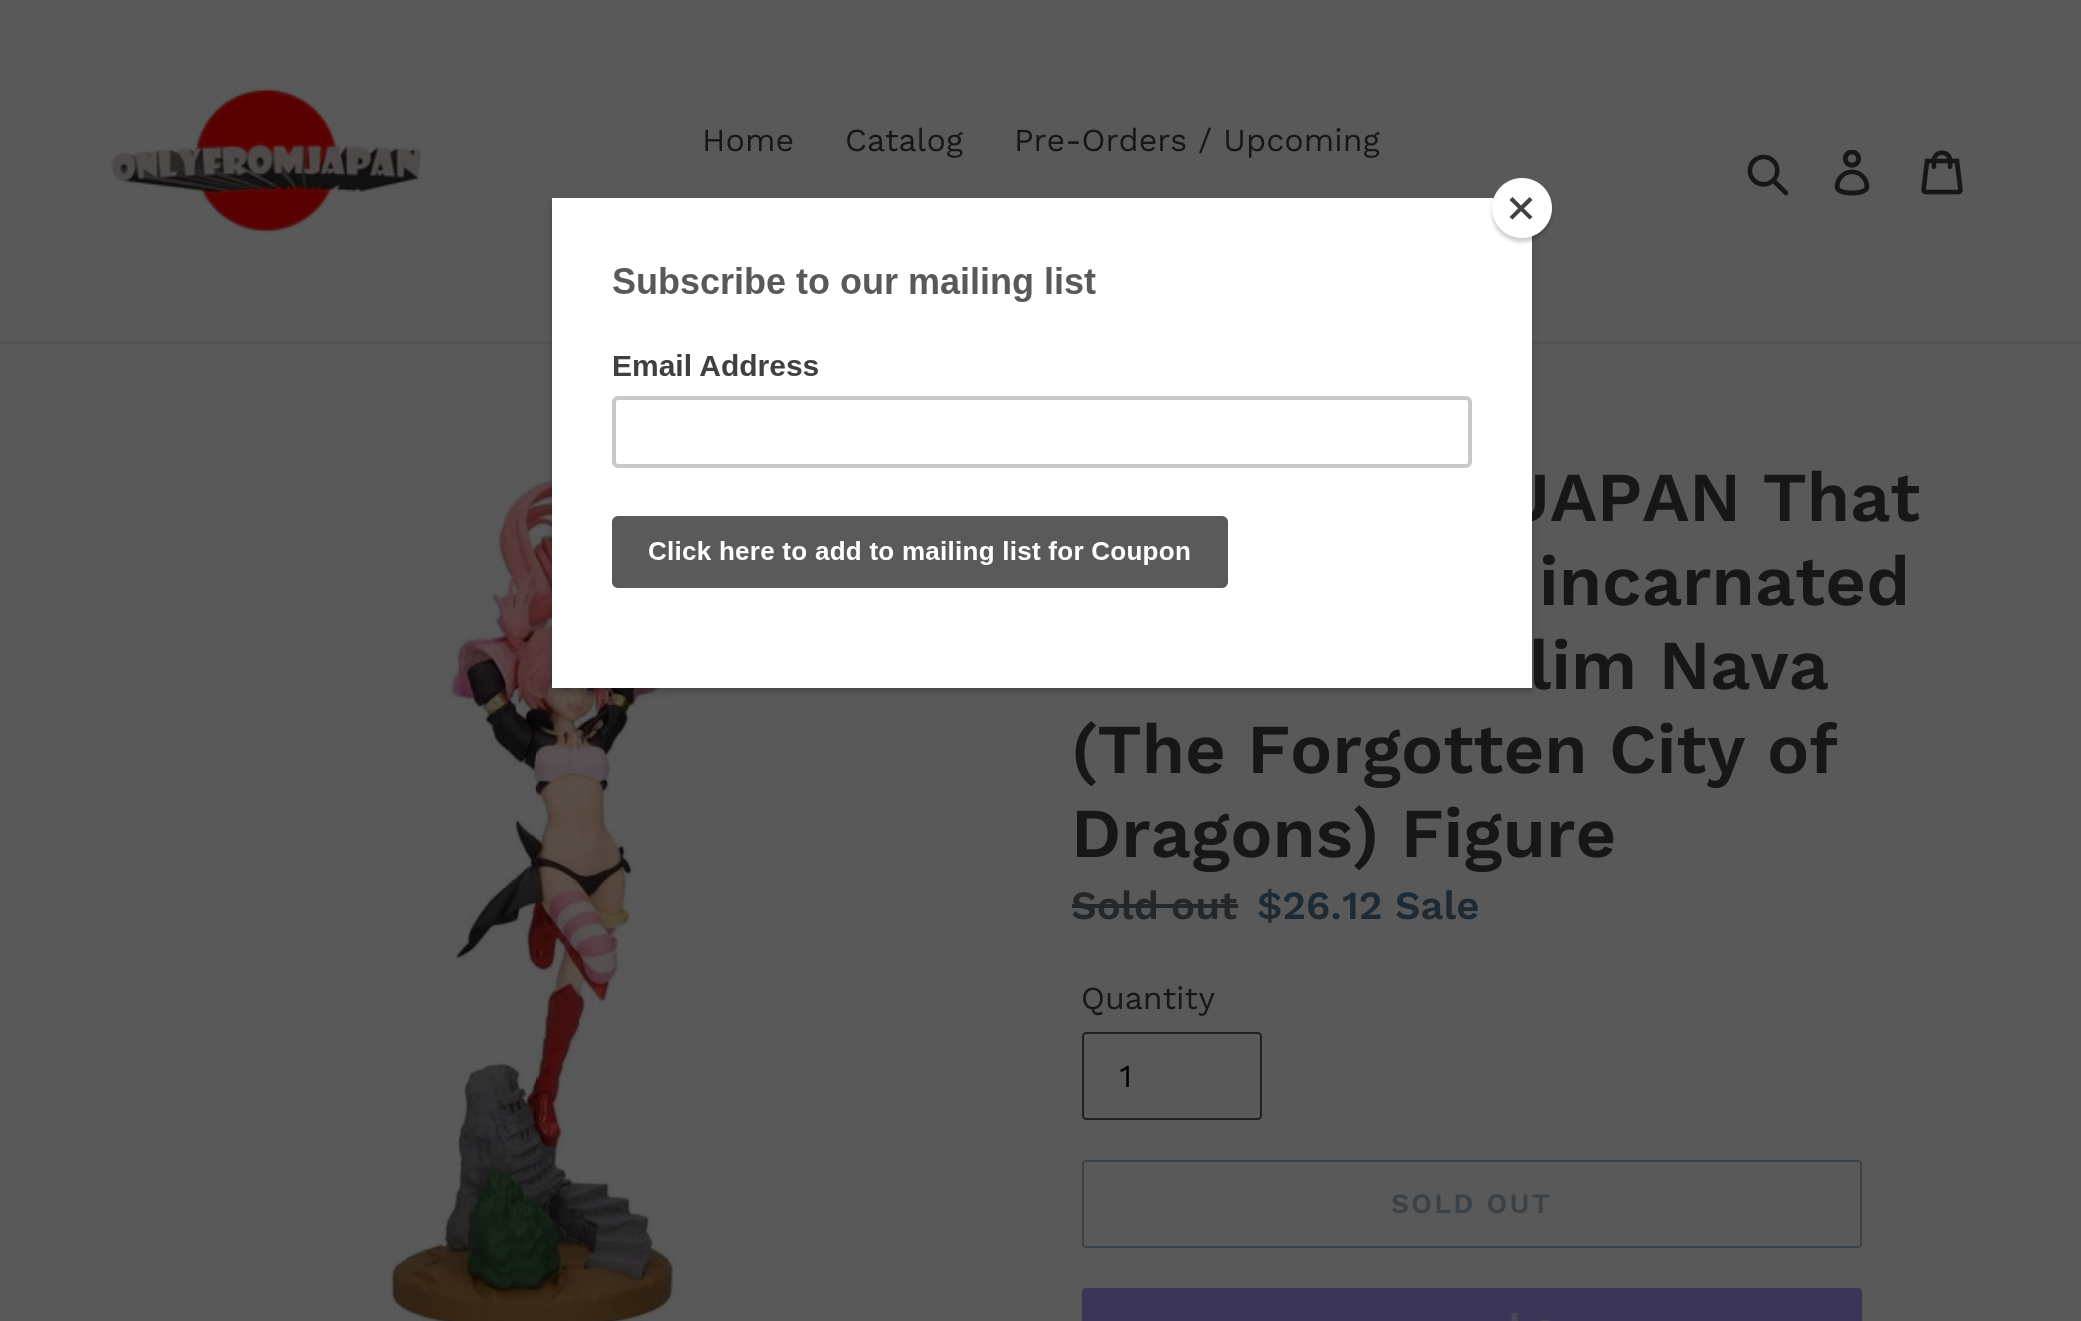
#include <cairo/cairo.h>
#include <math.h>
#include <stddef.h>


static void draw_spaced(cairo_t *cr, double x, double y, const char *s, double letter, double word) {
  cairo_move_to(cr, x, y);
  while (*s) {
    char ch[5] = {0};
    int n = 0;
    do ch[n++] = *s++; while ((*s & 0xC0) == 0x80);
    cairo_show_text(cr, ch);
    cairo_rel_move_to(cr, letter + word * (*ch == ' '), 0);
  }
}

static void rounded_rect(cairo_t *cr, double x, double y, double w, double h, double r) {
  cairo_new_sub_path(cr);
  cairo_arc(cr, x + w - r, y + h - r, r, 0, M_PI / 2);
  cairo_arc(cr, x + r, y + h - r, r, M_PI / 2, M_PI);
  cairo_arc(cr, x + r, y + r, r, M_PI, 1.5 * M_PI);
  cairo_arc(cr, x + w - r, y + r, r, 1.5 * M_PI, 2 * M_PI);
  cairo_close_path(cr);
}

static void draw_shadow(cairo_t *cr, double x, double y, double w, double h, double r, double blur, double alpha) {
  cairo_push_group_with_content(cr, CAIRO_CONTENT_ALPHA);
  cairo_set_operator(cr, CAIRO_OPERATOR_SOURCE);
  for (int i = 15; i >= -15 && fmin(w, h) + blur * i / 3 > 0; i -= 2) {
    double e = blur * i / 6;
    cairo_set_source_rgba(cr, 0, 0, 0, alpha * erfc((i - 1) / 8.5) / 2);
    rounded_rect(cr, x - e, y - e, w + 2 * e, h + 2 * e, fmax(0, fmin(r + e + blur * .6, fmin(w, h) / 2 + e)));
    cairo_fill(cr);
  }
  cairo_pattern_t *soft = cairo_pop_group(cr);
  cairo_mask(cr, soft);
  cairo_pattern_destroy(soft);
}

static void draw_image(cairo_t *cr, const char *path, double x, double y, double w, double h) {
  cairo_surface_t *image = cairo_image_surface_create_from_png(path);
  cairo_save(cr);
  cairo_set_source_surface(cr, image, x, y);
  cairo_rectangle(cr, x, y, w, h);
  cairo_fill(cr);
  cairo_restore(cr);
  cairo_surface_destroy(image);
}

static void draw(cairo_t *cr) {
  cairo_set_source_rgb(cr, 89 / 255.0, 89 / 255.0, 89 / 255.0);
  cairo_paint(cr);
  cairo_set_source_rgb(cr, 81 / 255.0, 82 / 255.0, 82 / 255.0);
  cairo_rectangle(cr, 0, 342, 2081, 2);
  cairo_fill(cr);
  draw_image(cr, "images/1.png", 110, 86, 313, 149);
  draw_image(cr, "images/2.png", 1747, 154, 42, 42);
  draw_image(cr, "images/3.png", 1834, 150, 36, 46);
  draw_image(cr, "images/4.png", 1921, 150, 42, 45);
  draw_image(cr, "images/6.png", 387, 468, 296, 853);
  cairo_set_source_rgb(cr, 0, 0, 0);
  draw_shadow(cr, 552, 202, 980, 490, 0, 4, 0.2);
  cairo_set_source_rgb(cr, 37 / 255.0, 40 / 255.0, 43 / 255.0);
  cairo_rectangle(cr, 1072, 904, 166, 4);
  cairo_fill(cr);
  rounded_rect(cr, 1083, 1033, 178, 86, 3);
  cairo_set_source_rgb(cr, 31 / 255.0, 33 / 255.0, 34 / 255.0);
  cairo_stroke(cr);
  rounded_rect(cr, 1083, 1161, 778, 86, 3);
  cairo_set_source_rgb(cr, 59 / 255.0, 66 / 255.0, 71 / 255.0);
  cairo_stroke(cr);
  cairo_set_source_rgb(cr, 59 / 255.0, 54 / 255.0, 86 / 255.0);
  rounded_rect(cr, 1082, 1288, 780, 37, 4);
  cairo_fill(cr);
  draw_image(cr, "images/7.png", 1511, 1313, 65, 8);
  cairo_select_font_face(cr, "Work Sans", CAIRO_FONT_SLANT_NORMAL, CAIRO_FONT_WEIGHT_NORMAL);
  cairo_set_font_size(cr, 32);
  cairo_set_source_rgb(cr, 21 / 255.0, 23 / 255.0, 25 / 255.0);
  cairo_move_to(cr, 702, 151);
  cairo_show_text(cr, "Home");
  cairo_move_to(cr, 845, 151);
  cairo_show_text(cr, "Catalog");
  cairo_move_to(cr, 1014, 151);
  cairo_show_text(cr, "Pre-Orders / Upcoming");
  cairo_select_font_face(cr, "Work Sans SemiBold", CAIRO_FONT_SLANT_NORMAL, CAIRO_FONT_WEIGHT_NORMAL);
  cairo_set_font_size(cr, 70);
  cairo_move_to(cr, 1508, 521);
  cairo_show_text(cr, "JAPAN That");
  draw_image(cr, "images/5.png", 552, 198, 980, 490);
  cairo_set_source_rgb(cr, 0, 0, 0);
  draw_shadow(cr, 1492, 182, 60, 60, 30, 2, 0.2);
  cairo_set_source_rgb(cr, 1, 1, 1);
  cairo_arc(cr, 1522, 208, 30, 0, 2 * M_PI);
  cairo_fill(cr);
  cairo_set_source_rgb(cr, 65 / 255.0, 65 / 255.0, 65 / 255.0);
  cairo_new_path(cr);
  cairo_move_to(cr, 1529.5, 197);
  cairo_line_to(cr, 1532.5, 200);
  cairo_line_to(cr, 1512.5, 219.5);
  cairo_line_to(cr, 1509.5, 217);
  cairo_close_path(cr);
  cairo_fill(cr);
  cairo_new_path(cr);
  cairo_move_to(cr, 1509.5, 200);
  cairo_line_to(cr, 1512.5, 197);
  cairo_line_to(cr, 1532.5, 217);
  cairo_line_to(cr, 1529.5, 219.5);
  cairo_close_path(cr);
  cairo_fill(cr);
  cairo_set_source_rgb(cr, 21 / 255.0, 23 / 255.0, 25 / 255.0);
  cairo_move_to(cr, 1539, 605);
  cairo_show_text(cr, "incarnated");
  cairo_move_to(cr, 1529, 689);
  cairo_show_text(cr, "lim Nava");
  cairo_move_to(cr, 1071, 773);
  cairo_show_text(cr, "(The Forgotten City of");
  cairo_move_to(cr, 1071, 857);
  cairo_show_text(cr, "Dragons) Figure");
  cairo_set_font_size(cr, 40);
  cairo_set_source_rgb(cr, 37 / 255.0, 40 / 255.0, 43 / 255.0);
  cairo_move_to(cr, 1071, 919);
  cairo_show_text(cr, "Sold out");
  cairo_set_source_rgb(cr, 30 / 255.0, 43 / 255.0, 53 / 255.0);
  cairo_move_to(cr, 1257, 919);
  cairo_show_text(cr, "$26.12 Sale");
  cairo_select_font_face(cr, "Work Sans", CAIRO_FONT_SLANT_NORMAL, CAIRO_FONT_WEIGHT_NORMAL);
  cairo_set_font_size(cr, 32);
  cairo_set_source_rgb(cr, 21 / 255.0, 23 / 255.0, 25 / 255.0);
  cairo_move_to(cr, 1081, 1009);
  cairo_show_text(cr, "Quantity");
  cairo_set_source_rgb(cr, 0, 0, 0);
  cairo_move_to(cr, 1119, 1087);
  cairo_show_text(cr, "1");
  cairo_select_font_face(cr, "Work Sans SemiBold", CAIRO_FONT_SLANT_NORMAL, CAIRO_FONT_WEIGHT_NORMAL);
  cairo_set_font_size(cr, 28);
  cairo_set_source_rgb(cr, 59 / 255.0, 66 / 255.0, 71 / 255.0);
  draw_spaced(cr, 1391, 1213, "SOLD OUT", 2.25, 0);
}

int main(void) {
  cairo_surface_t *surface = cairo_image_surface_create(CAIRO_FORMAT_RGB24, 2081, 1321);
  cairo_t *cr = cairo_create(surface);
  cairo_font_options_t *options = cairo_font_options_create();
  cairo_font_options_set_hint_metrics(options, CAIRO_HINT_METRICS_OFF);
  cairo_font_options_set_hint_style(options, CAIRO_HINT_STYLE_NONE);
  cairo_set_font_options(cr, options);
  cairo_set_miter_limit(cr, 4);
  draw(cr);
  cairo_surface_write_to_png(surface, "out.png");
  cairo_font_options_destroy(options);
  cairo_destroy(cr);
  cairo_surface_destroy(surface);
  return 0;
}
